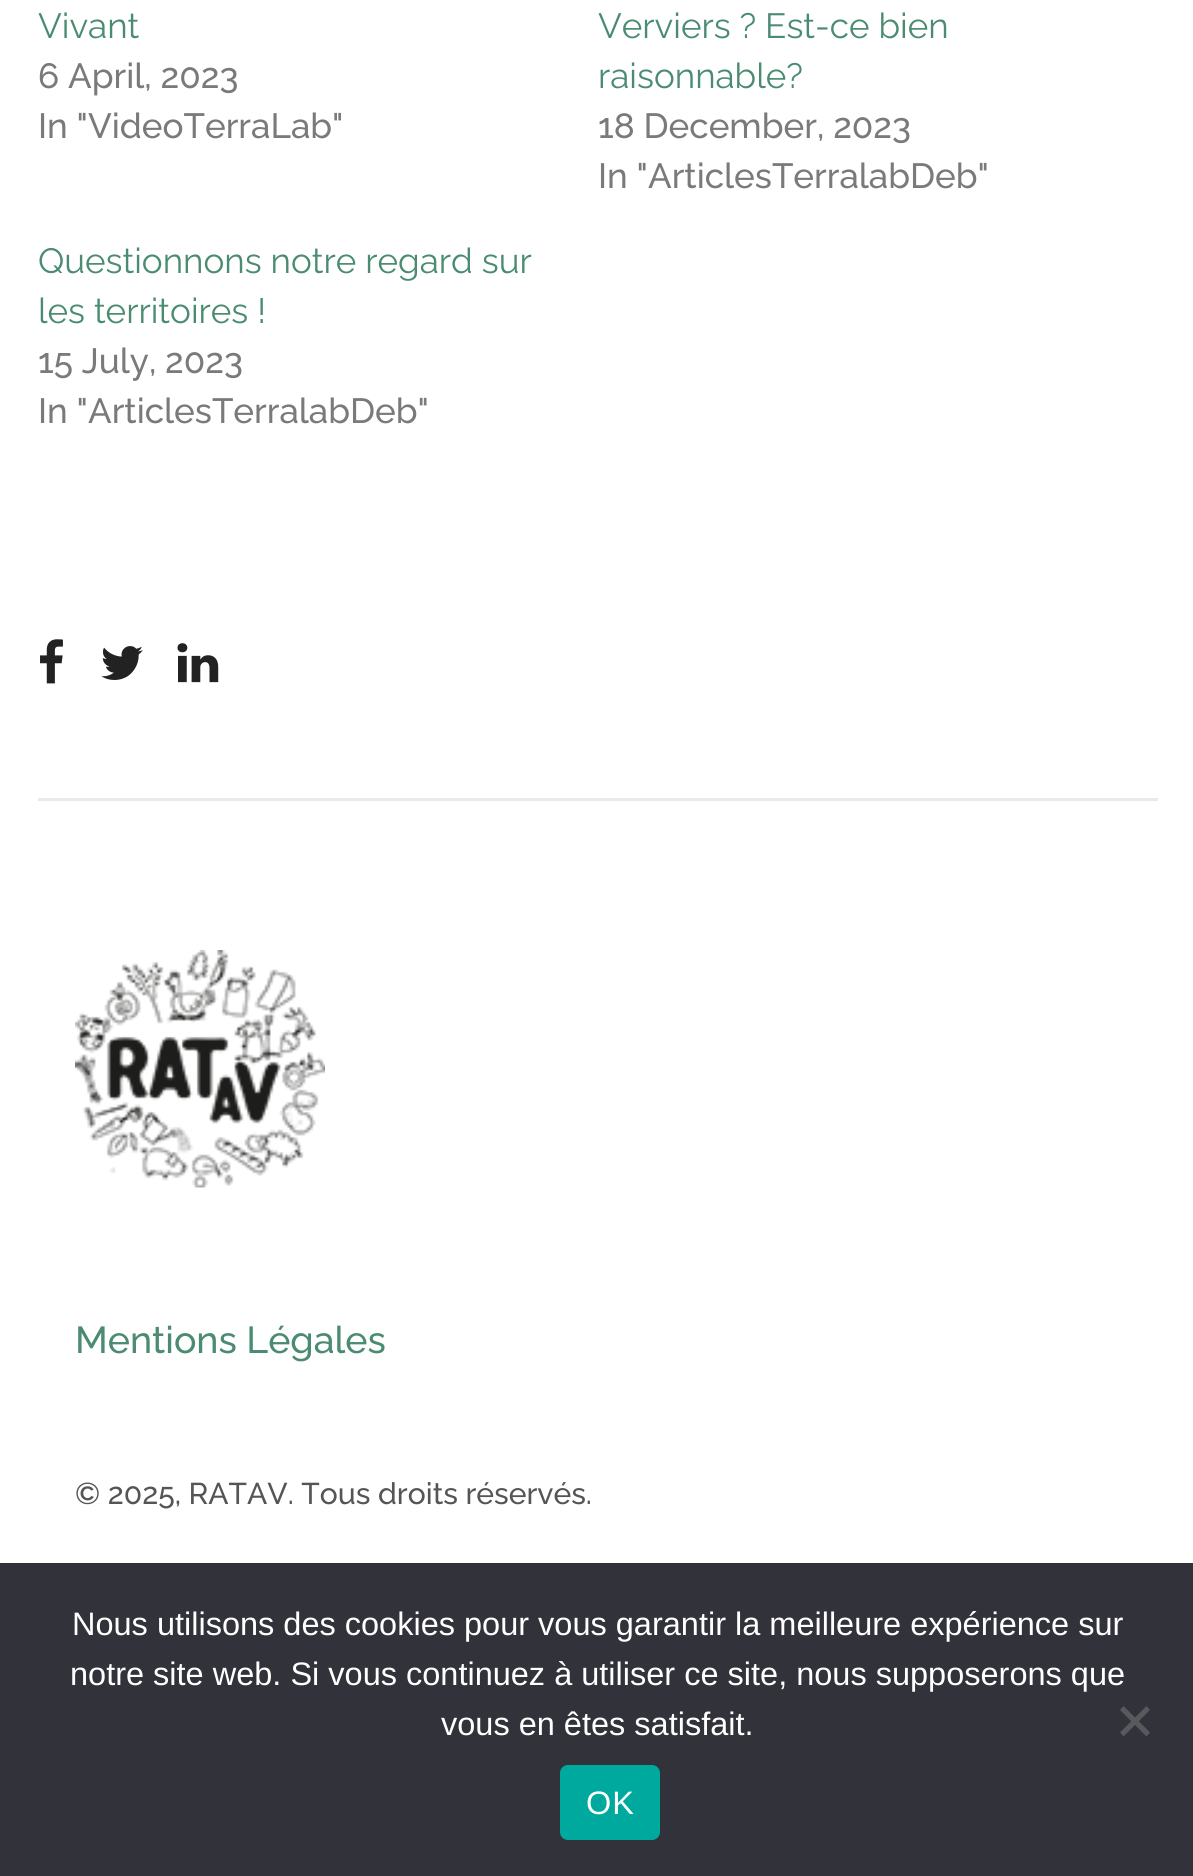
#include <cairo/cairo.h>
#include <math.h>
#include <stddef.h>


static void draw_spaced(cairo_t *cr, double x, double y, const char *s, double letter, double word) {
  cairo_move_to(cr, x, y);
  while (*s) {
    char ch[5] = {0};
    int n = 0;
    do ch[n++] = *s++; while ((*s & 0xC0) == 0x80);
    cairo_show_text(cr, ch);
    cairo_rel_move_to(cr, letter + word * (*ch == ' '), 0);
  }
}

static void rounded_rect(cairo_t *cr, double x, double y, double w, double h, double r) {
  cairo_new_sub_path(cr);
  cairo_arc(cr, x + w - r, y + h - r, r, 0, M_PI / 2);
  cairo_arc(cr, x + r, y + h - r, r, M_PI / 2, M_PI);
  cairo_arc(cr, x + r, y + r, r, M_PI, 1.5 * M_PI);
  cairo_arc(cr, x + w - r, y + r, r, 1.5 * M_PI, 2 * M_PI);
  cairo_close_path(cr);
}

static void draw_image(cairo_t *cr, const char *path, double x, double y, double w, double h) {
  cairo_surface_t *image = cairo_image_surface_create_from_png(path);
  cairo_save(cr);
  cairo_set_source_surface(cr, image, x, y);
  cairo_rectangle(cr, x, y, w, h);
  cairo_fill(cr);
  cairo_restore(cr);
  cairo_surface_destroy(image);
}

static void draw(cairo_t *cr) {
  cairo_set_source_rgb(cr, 1, 1, 1);
  cairo_paint(cr);
  draw_image(cr, "images/1.png", 40, 639, 23, 45);
  draw_image(cr, "images/2.png", 101, 646, 42, 34);
  draw_image(cr, "images/3.png", 177, 643, 42, 40);
  cairo_set_source_rgb(cr, 233 / 255.0, 233 / 255.0, 233 / 255.0);
  cairo_rectangle(cr, 38, 798, 1120, 3);
  cairo_fill(cr);
  draw_image(cr, "images/4.png", 75, 950, 250, 238);
  cairo_set_source_rgb(cr, 50 / 255.0, 50 / 255.0, 58 / 255.0);
  cairo_rectangle(cr, 0, 1563, 1193, 313);
  cairo_fill(cr);
  cairo_set_source_rgb(cr, 89 / 255.0, 89 / 255.0, 93 / 255.0);
  cairo_new_path(cr);
  cairo_move_to(cr, 1146.5, 1706);
  cairo_line_to(cr, 1150, 1710);
  cairo_line_to(cr, 1123.5, 1736.5);
  cairo_line_to(cr, 1120, 1732.5);
  cairo_close_path(cr);
  cairo_fill(cr);
  cairo_new_path(cr);
  cairo_move_to(cr, 1120, 1710);
  cairo_line_to(cr, 1123.5, 1706);
  cairo_line_to(cr, 1150, 1732.5);
  cairo_line_to(cr, 1146.5, 1736.5);
  cairo_close_path(cr);
  cairo_fill(cr);
  cairo_set_source_rgb(cr, 0, 169 / 255.0, 157 / 255.0);
  rounded_rect(cr, 560, 1765, 100, 75, 8);
  cairo_fill(cr);
  cairo_select_font_face(cr, "Raleway", CAIRO_FONT_SLANT_NORMAL, CAIRO_FONT_WEIGHT_NORMAL);
  cairo_set_font_size(cr, 35);
  cairo_set_source_rgb(cr, 74 / 255.0, 139 / 255.0, 113 / 255.0);
  cairo_move_to(cr, 38, 38);
  cairo_show_text(cr, "Vivant");
  cairo_select_font_face(cr, "Raleway Medium", CAIRO_FONT_SLANT_NORMAL, CAIRO_FONT_WEIGHT_NORMAL);
  cairo_set_source_rgb(cr, 122 / 255.0, 122 / 255.0, 122 / 255.0);
  cairo_move_to(cr, 38, 88);
  cairo_show_text(cr, "6 April, 2023");
  cairo_move_to(cr, 38, 138);
  cairo_show_text(cr, "In \"VideoTerraLab\"");
  cairo_select_font_face(cr, "Raleway", CAIRO_FONT_SLANT_NORMAL, CAIRO_FONT_WEIGHT_NORMAL);
  cairo_set_source_rgb(cr, 74 / 255.0, 139 / 255.0, 113 / 255.0);
  cairo_move_to(cr, 598, 38);
  cairo_show_text(cr, "Verviers ? Est-ce bien");
  cairo_move_to(cr, 598, 88);
  cairo_show_text(cr, "raisonnable?");
  cairo_select_font_face(cr, "Raleway Medium", CAIRO_FONT_SLANT_NORMAL, CAIRO_FONT_WEIGHT_NORMAL);
  cairo_set_source_rgb(cr, 122 / 255.0, 122 / 255.0, 122 / 255.0);
  cairo_move_to(cr, 598, 138);
  cairo_show_text(cr, "18 December, 2023");
  cairo_move_to(cr, 598, 188);
  cairo_show_text(cr, "In \"ArticlesTerralabDeb\"");
  cairo_select_font_face(cr, "Raleway", CAIRO_FONT_SLANT_NORMAL, CAIRO_FONT_WEIGHT_NORMAL);
  cairo_set_source_rgb(cr, 74 / 255.0, 139 / 255.0, 113 / 255.0);
  cairo_move_to(cr, 38, 273);
  cairo_show_text(cr, "Questionnons notre regard sur");
  cairo_move_to(cr, 38, 323);
  cairo_show_text(cr, "les territoires !");
  cairo_select_font_face(cr, "Raleway Medium", CAIRO_FONT_SLANT_NORMAL, CAIRO_FONT_WEIGHT_NORMAL);
  cairo_set_source_rgb(cr, 122 / 255.0, 122 / 255.0, 122 / 255.0);
  cairo_move_to(cr, 38, 373);
  cairo_show_text(cr, "15 July, 2023");
  cairo_move_to(cr, 38, 423);
  cairo_show_text(cr, "In \"ArticlesTerralabDeb\"");
  cairo_set_font_size(cr, 37.5);
  cairo_set_source_rgb(cr, 74 / 255.0, 139 / 255.0, 113 / 255.0);
  cairo_move_to(cr, 75, 1353);
  cairo_show_text(cr, "Mentions Légales");
  cairo_set_font_size(cr, 30);
  cairo_set_source_rgb(cr, 85 / 255.0, 85 / 255.0, 85 / 255.0);
  cairo_move_to(cr, 75, 1504);
  cairo_show_text(cr, "© 2025, RATAV. Tous droits réservés.");
  cairo_select_font_face(cr, "Liberation Sans", CAIRO_FONT_SLANT_NORMAL, CAIRO_FONT_WEIGHT_NORMAL);
  cairo_set_font_size(cr, 32.5);
  cairo_set_source_rgb(cr, 1, 1, 1);
  cairo_move_to(cr, 72, 1635);
  cairo_show_text(cr, "Nous utilisons des cookies pour vous garantir la meilleure expérience sur");
  cairo_move_to(cr, 70, 1685);
  cairo_show_text(cr, "notre site web. Si vous continuez à utiliser ce site, nous supposerons que");
  cairo_move_to(cr, 441, 1735);
  cairo_show_text(cr, "vous en êtes satisfait.");
  draw_spaced(cr, 586, 1814, "OK", 1, 0);
}

int main(void) {
  cairo_surface_t *surface = cairo_image_surface_create(CAIRO_FORMAT_RGB24, 1193, 1876);
  cairo_t *cr = cairo_create(surface);
  cairo_font_options_t *options = cairo_font_options_create();
  cairo_font_options_set_hint_metrics(options, CAIRO_HINT_METRICS_OFF);
  cairo_font_options_set_hint_style(options, CAIRO_HINT_STYLE_NONE);
  cairo_set_font_options(cr, options);
  cairo_set_miter_limit(cr, 4);
  draw(cr);
  cairo_surface_write_to_png(surface, "out.png");
  cairo_font_options_destroy(options);
  cairo_destroy(cr);
  cairo_surface_destroy(surface);
  return 0;
}
